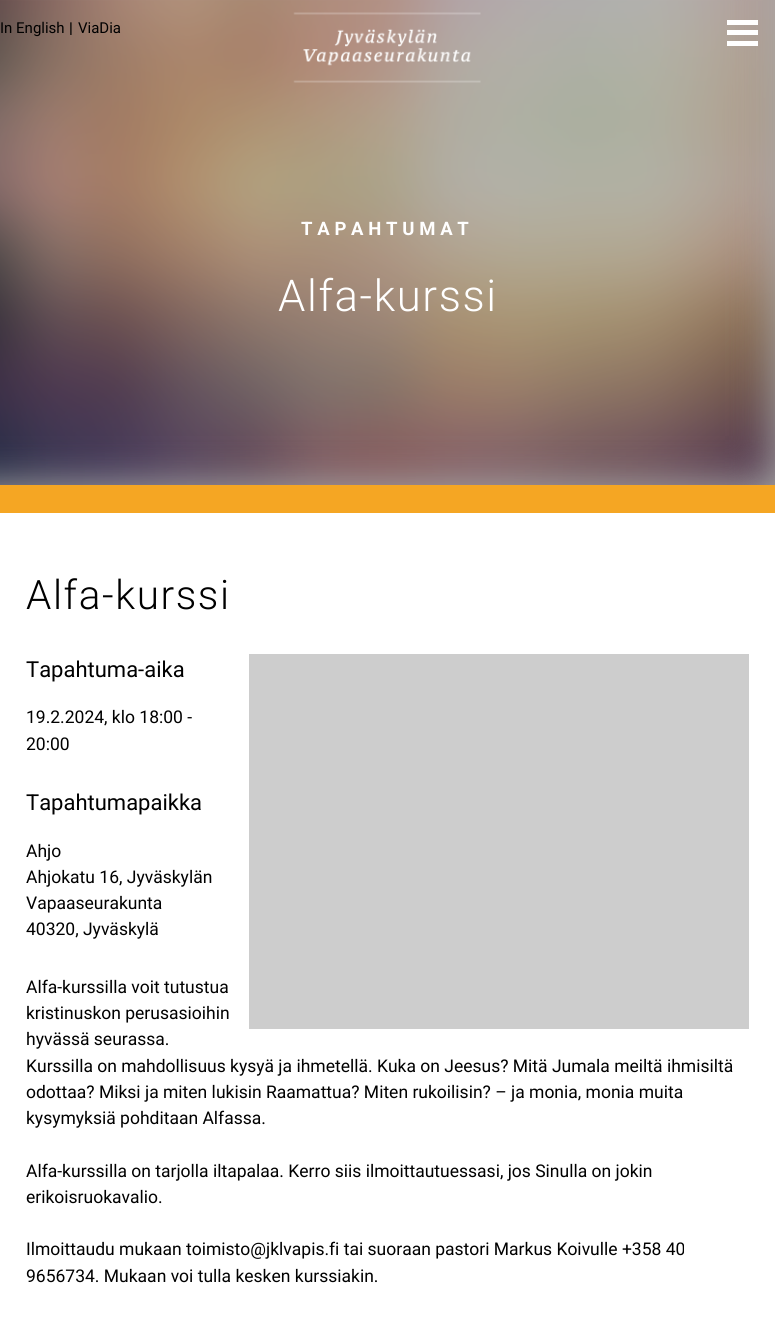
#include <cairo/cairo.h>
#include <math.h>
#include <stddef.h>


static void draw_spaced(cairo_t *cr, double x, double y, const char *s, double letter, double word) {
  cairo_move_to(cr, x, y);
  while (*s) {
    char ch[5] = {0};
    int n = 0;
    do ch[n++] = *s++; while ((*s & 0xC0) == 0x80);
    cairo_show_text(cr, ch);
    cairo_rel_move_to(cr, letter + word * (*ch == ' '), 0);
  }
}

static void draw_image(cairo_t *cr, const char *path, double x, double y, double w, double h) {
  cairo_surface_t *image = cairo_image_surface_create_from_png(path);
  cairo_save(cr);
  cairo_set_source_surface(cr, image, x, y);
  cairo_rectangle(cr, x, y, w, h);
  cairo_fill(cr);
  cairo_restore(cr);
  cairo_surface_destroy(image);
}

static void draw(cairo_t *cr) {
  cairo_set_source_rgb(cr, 1, 1, 1);
  cairo_paint(cr);
  cairo_set_source_rgb(cr, 167 / 255.0, 167 / 255.0, 167 / 255.0);
  cairo_rectangle(cr, 0, 0, 775, 485);
  cairo_fill(cr);
  draw_image(cr, "images/2.png", 0, 0, 775, 485);
  draw_image(cr, "images/1.png", 293, 12, 188, 71);
  cairo_set_source_rgb(cr, 1, 1, 1);
  cairo_rectangle(cr, 727, 20, 31, 5);
  cairo_fill(cr);
  cairo_rectangle(cr, 727, 30, 31, 5);
  cairo_fill(cr);
  cairo_rectangle(cr, 727, 41, 31, 5);
  cairo_fill(cr);
  cairo_set_source_rgb(cr, 245 / 255.0, 166 / 255.0, 35 / 255.0);
  cairo_rectangle(cr, 0, 485, 775, 28);
  cairo_fill(cr);
  cairo_set_source_rgb(cr, 205 / 255.0, 205 / 255.0, 205 / 255.0);
  cairo_rectangle(cr, 249, 654, 500, 375);
  cairo_fill(cr);
  cairo_select_font_face(cr, "Roboto", CAIRO_FONT_SLANT_NORMAL, CAIRO_FONT_WEIGHT_NORMAL);
  cairo_set_font_size(cr, 15);
  cairo_set_source_rgb(cr, 0, 0, 0);
  cairo_move_to(cr, 0, 33);
  cairo_show_text(cr, "In English");
  cairo_select_font_face(cr, "Roboto", CAIRO_FONT_SLANT_NORMAL, CAIRO_FONT_WEIGHT_BOLD);
  cairo_move_to(cr, 69, 33);
  cairo_show_text(cr, "|");
  cairo_select_font_face(cr, "Roboto", CAIRO_FONT_SLANT_NORMAL, CAIRO_FONT_WEIGHT_NORMAL);
  cairo_move_to(cr, 78, 33);
  cairo_show_text(cr, "ViaDia");
  cairo_select_font_face(cr, "Roboto", CAIRO_FONT_SLANT_NORMAL, CAIRO_FONT_WEIGHT_BOLD);
  cairo_set_font_size(cr, 18.5);
  cairo_set_source_rgb(cr, 1, 1, 1);
  draw_spaced(cr, 301, 235, "TAPAHTUMAT", 4.75, 0);
  cairo_select_font_face(cr, "Roboto Light", CAIRO_FONT_SLANT_NORMAL, CAIRO_FONT_WEIGHT_NORMAL);
  cairo_set_font_size(cr, 43.75);
  draw_spaced(cr, 278, 311, "Alfa-kurssi", 1.6, 0);
  cairo_set_font_size(cr, 40.5);
  cairo_set_source_rgb(cr, 0, 0, 0);
  draw_spaced(cr, 26, 609, "Alfa-kurssi", 1.6, 0);
  cairo_select_font_face(cr, "Roboto", CAIRO_FONT_SLANT_NORMAL, CAIRO_FONT_WEIGHT_NORMAL);
  cairo_set_font_size(cr, 22);
  cairo_move_to(cr, 26, 677);
  cairo_show_text(cr, "Tapahtuma-aika");
  cairo_set_font_size(cr, 17.5);
  cairo_move_to(cr, 26, 723);
  cairo_show_text(cr, "19.2.2024, klo 18:00 -");
  cairo_move_to(cr, 26, 750);
  cairo_show_text(cr, "20:00");
  cairo_set_font_size(cr, 22);
  cairo_move_to(cr, 26, 810);
  cairo_show_text(cr, "Tapahtumapaikka");
  cairo_set_font_size(cr, 17.5);
  cairo_move_to(cr, 26, 857);
  cairo_show_text(cr, "Ahjo");
  cairo_move_to(cr, 26, 883);
  cairo_show_text(cr, "Ahjokatu 16, Jyväskylän");
  cairo_move_to(cr, 26, 909);
  cairo_show_text(cr, "Vapaaseurakunta");
  cairo_move_to(cr, 26, 935);
  cairo_show_text(cr, "40320, Jyväskylä");
  cairo_move_to(cr, 26, 993);
  cairo_show_text(cr, "Alfa-kurssilla voit tutustua");
  cairo_move_to(cr, 26, 1019);
  cairo_show_text(cr, "kristinuskon perusasioihin");
  cairo_move_to(cr, 26, 1045);
  cairo_show_text(cr, "hyvässä seurassa.");
  cairo_move_to(cr, 26, 1072);
  cairo_show_text(cr, "Kurssilla on mahdollisuus kysyä ja ihmetellä. Kuka on Jeesus? Mitä Jumala meiltä ihmisiltä");
  cairo_move_to(cr, 26, 1098);
  cairo_show_text(cr, "odottaa? Miksi ja miten lukisin Raamattua? Miten rukoilisin? – ja monia, monia muita");
  cairo_move_to(cr, 26, 1124);
  cairo_show_text(cr, "kysymyksiä pohditaan Alfassa.");
  cairo_move_to(cr, 26, 1177);
  cairo_show_text(cr, "Alfa-kurssilla on tarjolla iltapalaa. Kerro siis ilmoittautuessasi, jos Sinulla on jokin");
  cairo_move_to(cr, 26, 1203);
  cairo_show_text(cr, "erikoisruokavalio.");
  cairo_move_to(cr, 26, 1255);
  cairo_show_text(cr, "Ilmoittaudu mukaan toimisto@jklvapis.fi tai suoraan pastori Markus Koivulle +358 40");
  cairo_move_to(cr, 26, 1282);
  cairo_show_text(cr, "9656734. Mukaan voi tulla kesken kurssiakin.");
}

int main(void) {
  cairo_surface_t *surface = cairo_image_surface_create(CAIRO_FORMAT_RGB24, 775, 1328);
  cairo_t *cr = cairo_create(surface);
  cairo_font_options_t *options = cairo_font_options_create();
  cairo_font_options_set_hint_metrics(options, CAIRO_HINT_METRICS_OFF);
  cairo_font_options_set_hint_style(options, CAIRO_HINT_STYLE_NONE);
  cairo_set_font_options(cr, options);
  cairo_set_miter_limit(cr, 4);
  draw(cr);
  cairo_surface_write_to_png(surface, "out.png");
  cairo_font_options_destroy(options);
  cairo_destroy(cr);
  cairo_surface_destroy(surface);
  return 0;
}
